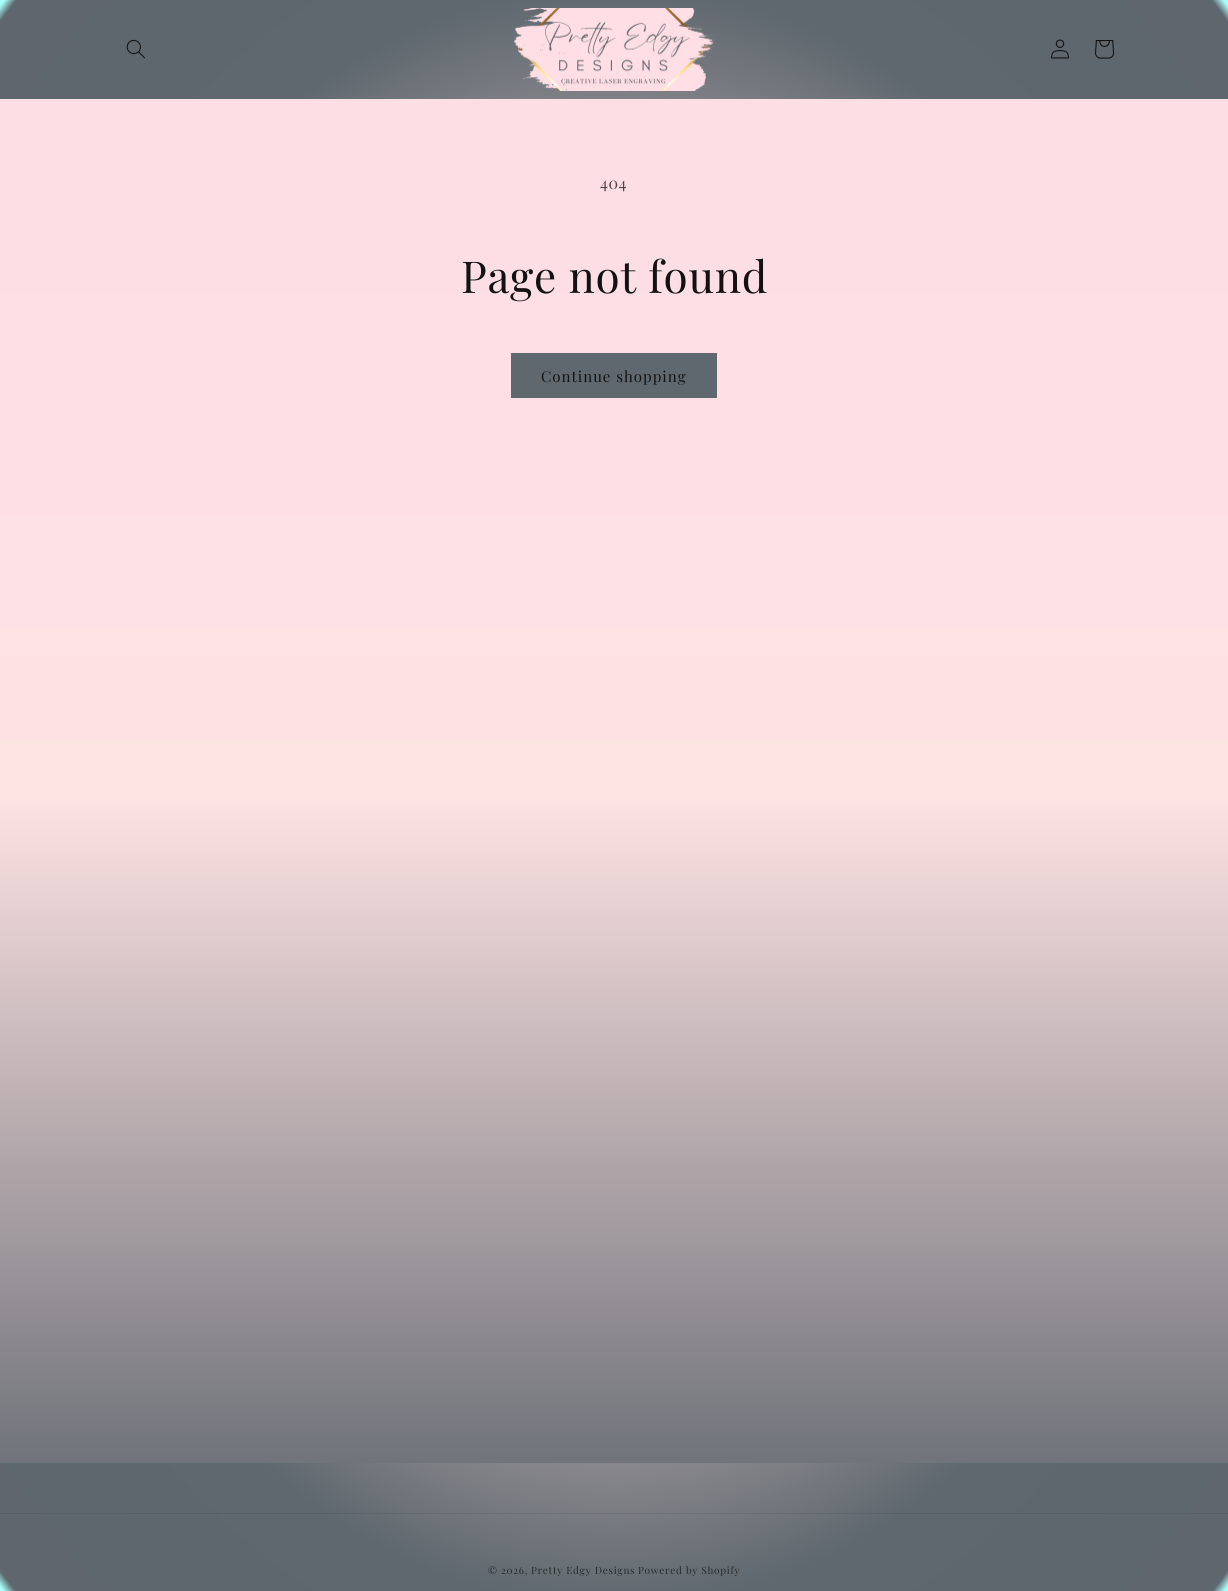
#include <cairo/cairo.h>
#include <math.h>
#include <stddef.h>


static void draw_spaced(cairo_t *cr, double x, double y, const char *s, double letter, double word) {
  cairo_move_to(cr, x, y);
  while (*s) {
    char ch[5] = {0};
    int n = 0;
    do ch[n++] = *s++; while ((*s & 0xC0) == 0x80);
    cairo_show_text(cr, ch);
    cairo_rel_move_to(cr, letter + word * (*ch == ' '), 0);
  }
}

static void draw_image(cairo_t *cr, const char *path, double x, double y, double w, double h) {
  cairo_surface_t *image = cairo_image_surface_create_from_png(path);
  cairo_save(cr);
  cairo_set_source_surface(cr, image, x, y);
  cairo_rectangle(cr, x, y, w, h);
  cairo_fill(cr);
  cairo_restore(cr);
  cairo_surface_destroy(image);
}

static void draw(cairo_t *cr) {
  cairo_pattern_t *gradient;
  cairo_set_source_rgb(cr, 1, 1, 1);
  cairo_paint(cr);
  gradient = cairo_pattern_create_linear(614, 0, 614, 1591);
  cairo_pattern_add_color_stop_rgba(gradient, 0.15, 254 / 255.0, 222 / 255.0, 229 / 255.0, 1);
  cairo_pattern_add_color_stop_rgba(gradient, 0.5, 254 / 255.0, 227 / 255.0, 227 / 255.0, 1);
  cairo_pattern_add_color_stop_rgba(gradient, 0.97, 95 / 255.0, 102 / 255.0, 110 / 255.0, 1);
  cairo_pattern_add_color_stop_rgba(gradient, 1, 94 / 255.0, 104 / 255.0, 110 / 255.0, 1);
  cairo_pattern_add_color_stop_rgba(gradient, 1, 33 / 255.0, 249 / 255.0, 150 / 255.0, 1);
  cairo_set_source(cr, gradient);
  cairo_pattern_destroy(gradient);
  cairo_rectangle(cr, 0, 99, 1228, 1364);
  cairo_fill(cr);
  gradient = cairo_pattern_create_radial(0, 0, 0, 0, 0, 1);
  cairo_pattern_set_matrix(gradient, &(cairo_matrix_t){1.0 / 868, 0, 0, 1.0 / 1125, -1.0 * 614 / 868, -1.0 * 796 / 1125});
  cairo_pattern_add_color_stop_rgba(gradient, 0.23, 1, 222 / 255.0, 227 / 255.0, 1);
  cairo_pattern_add_color_stop_rgba(gradient, 0.72, 94 / 255.0, 104 / 255.0, 110 / 255.0, 1);
  cairo_pattern_add_color_stop_rgba(gradient, 0.99, 95 / 255.0, 102 / 255.0, 110 / 255.0, 1);
  cairo_pattern_add_color_stop_rgba(gradient, 1, 168 / 255.0, 1, 251 / 255.0, 1);
  cairo_set_source(cr, gradient);
  cairo_pattern_destroy(gradient);
  cairo_rectangle(cr, 0, 0, 1228, 99);
  cairo_fill(cr);
  draw_image(cr, "images/1.png", 126, 39, 19, 20);
  draw_image(cr, "images/2.png", 514, 8, 200, 83);
  draw_image(cr, "images/3.png", 1051, 39, 18, 20);
  draw_image(cr, "images/4.png", 1095, 40, 20, 19);
  cairo_set_source_rgb(cr, 94 / 255.0, 104 / 255.0, 110 / 255.0);
  cairo_rectangle(cr, 511, 353, 206, 45);
  cairo_fill(cr);
  gradient = cairo_pattern_create_radial(0, 0, 0, 0, 0, 1);
  cairo_pattern_set_matrix(gradient, &(cairo_matrix_t){1.0 / 868, 0, 0, 1.0 / 1125, -1.0 * 614 / 868, -1.0 * 796 / 1125});
  cairo_pattern_add_color_stop_rgba(gradient, 0.23, 1, 222 / 255.0, 227 / 255.0, 1);
  cairo_pattern_add_color_stop_rgba(gradient, 0.72, 94 / 255.0, 104 / 255.0, 110 / 255.0, 1);
  cairo_pattern_add_color_stop_rgba(gradient, 0.99, 95 / 255.0, 102 / 255.0, 110 / 255.0, 1);
  cairo_pattern_add_color_stop_rgba(gradient, 1, 168 / 255.0, 1, 251 / 255.0, 1);
  cairo_set_source(cr, gradient);
  cairo_pattern_destroy(gradient);
  cairo_rectangle(cr, 0, 1463, 1228, 128);
  cairo_fill(cr);
  gradient = cairo_pattern_create_radial(0, 0, 0, 0, 0, 1);
  cairo_pattern_set_matrix(gradient, &(cairo_matrix_t){1.0 / 868, 0, 0, 1.0 / 1125, -1.0 * 614 / 868, -1.0 * 796 / 1125});
  cairo_pattern_add_color_stop_rgba(gradient, 0.23, 236 / 255.0, 206 / 255.0, 210 / 255.0, 1);
  cairo_pattern_add_color_stop_rgba(gradient, 0.72, 88 / 255.0, 97 / 255.0, 103 / 255.0, 1);
  cairo_pattern_add_color_stop_rgba(gradient, 0.99, 89 / 255.0, 95 / 255.0, 103 / 255.0, 1);
  cairo_pattern_add_color_stop_rgba(gradient, 1, 156 / 255.0, 236 / 255.0, 232 / 255.0, 1);
  cairo_set_source(cr, gradient);
  cairo_pattern_destroy(gradient);
  cairo_rectangle(cr, 0, 1513, 1228, 1);
  cairo_fill(cr);
  cairo_select_font_face(cr, "Playfair Display", CAIRO_FONT_SLANT_NORMAL, CAIRO_FONT_WEIGHT_NORMAL);
  cairo_set_font_size(cr, 16);
  cairo_set_source_rgb(cr, 77 / 255.0, 69 / 255.0, 71 / 255.0);
  draw_spaced(cr, 600, 189, "404", 0.5, 0);
  cairo_set_font_size(cr, 44);
  cairo_set_source_rgb(cr, 18 / 255.0, 18 / 255.0, 18 / 255.0);
  draw_spaced(cr, 461, 293, "Page not found", 0.7, 0);
  cairo_set_font_size(cr, 15);
  draw_spaced(cr, 541, 382, "Continue shopping", 1, 0);
  cairo_set_font_size(cr, 10);
  cairo_set_source_rgb(cr, 39 / 255.0, 41 / 255.0, 42 / 255.0);
  draw_spaced(cr, 488, 1574, "© 2026,", 0.75, 0);
  draw_spaced(cr, 531, 1574, "Pretty Edgy Designs", 0.75, 0);
  draw_spaced(cr, 638, 1574, "Powered by Shopify", 0.75, 0);
}

int main(void) {
  cairo_surface_t *surface = cairo_image_surface_create(CAIRO_FORMAT_RGB24, 1228, 1591);
  cairo_t *cr = cairo_create(surface);
  cairo_font_options_t *options = cairo_font_options_create();
  cairo_font_options_set_hint_metrics(options, CAIRO_HINT_METRICS_OFF);
  cairo_font_options_set_hint_style(options, CAIRO_HINT_STYLE_NONE);
  cairo_set_font_options(cr, options);
  cairo_set_miter_limit(cr, 4);
  draw(cr);
  cairo_surface_write_to_png(surface, "out.png");
  cairo_font_options_destroy(options);
  cairo_destroy(cr);
  cairo_surface_destroy(surface);
  return 0;
}
